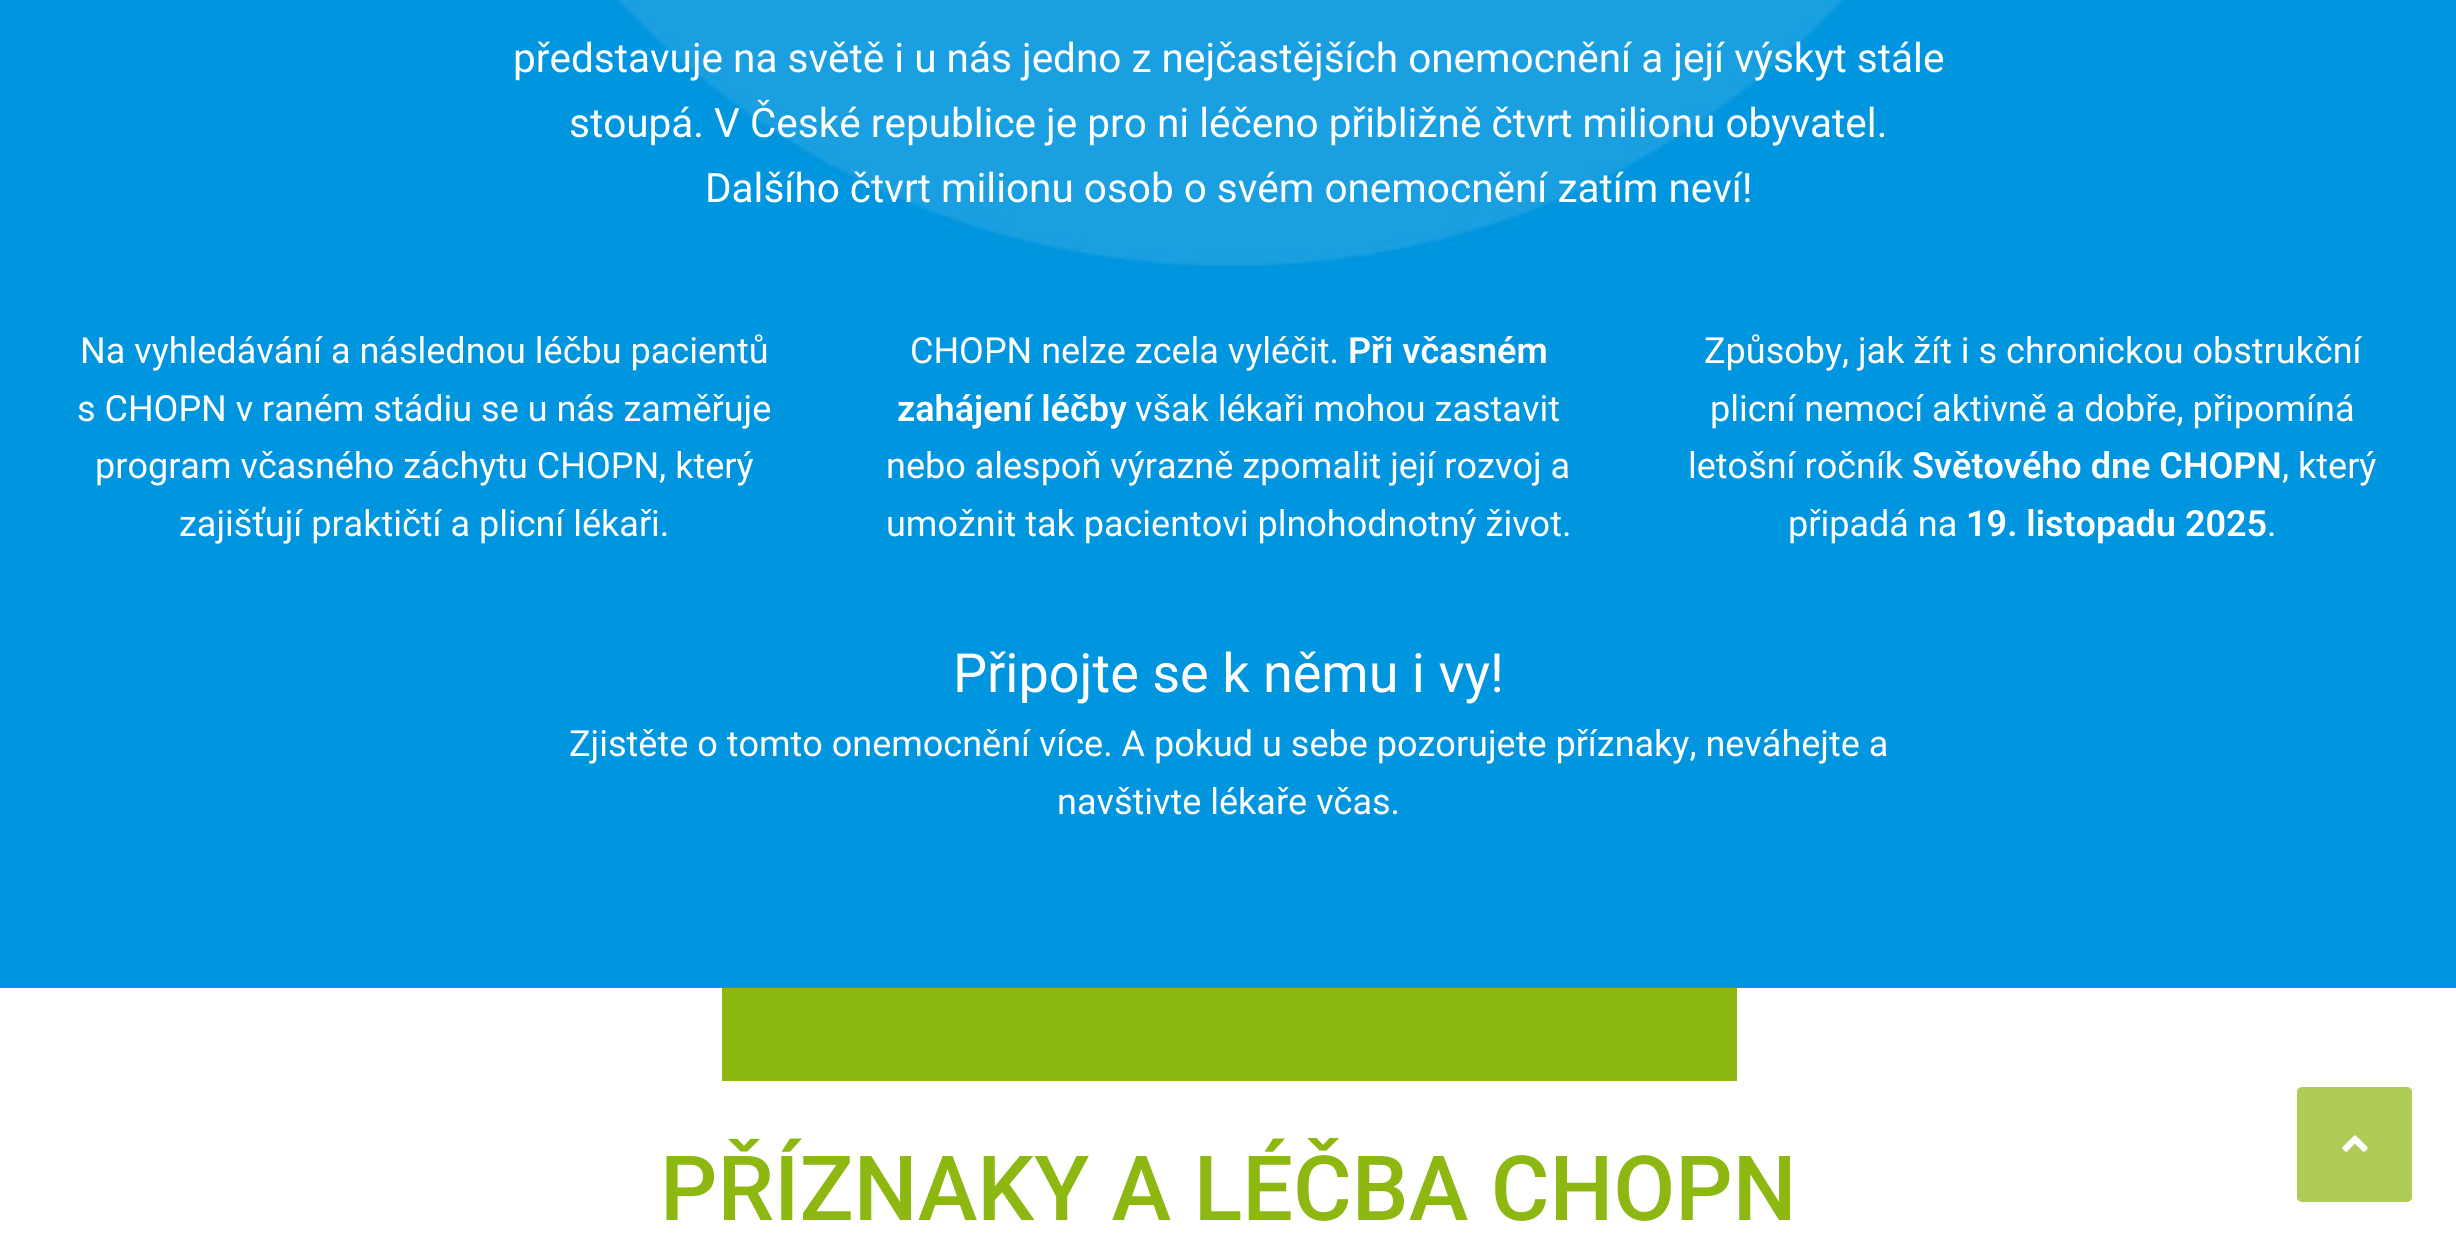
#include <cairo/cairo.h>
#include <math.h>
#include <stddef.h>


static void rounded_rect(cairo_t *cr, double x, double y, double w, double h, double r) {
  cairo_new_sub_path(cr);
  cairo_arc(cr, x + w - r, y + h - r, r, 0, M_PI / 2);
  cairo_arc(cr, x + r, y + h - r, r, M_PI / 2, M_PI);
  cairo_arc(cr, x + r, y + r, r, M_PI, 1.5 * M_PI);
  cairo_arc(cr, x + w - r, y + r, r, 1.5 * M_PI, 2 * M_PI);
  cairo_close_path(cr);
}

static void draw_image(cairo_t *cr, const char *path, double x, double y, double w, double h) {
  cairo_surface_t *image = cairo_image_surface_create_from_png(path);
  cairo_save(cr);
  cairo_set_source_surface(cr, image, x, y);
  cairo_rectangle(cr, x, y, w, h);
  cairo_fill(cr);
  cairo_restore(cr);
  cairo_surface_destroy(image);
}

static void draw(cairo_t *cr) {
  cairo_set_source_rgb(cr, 1, 1, 1);
  cairo_paint(cr);
  cairo_set_source_rgb(cr, 0, 149 / 255.0, 223 / 255.0);
  cairo_rectangle(cr, 0, 0, 2456, 988);
  cairo_fill(cr);
  draw_image(cr, "images/1.png", 617, 0, 1227, 267);
  cairo_set_source_rgb(cr, 141 / 255.0, 183 / 255.0, 17 / 255.0);
  cairo_rectangle(cr, 722, 988, 1015, 93);
  cairo_fill(cr);
  cairo_set_source_rgb(cr, 174 / 255.0, 204 / 255.0, 86 / 255.0);
  rounded_rect(cr, 2297, 1087, 115, 115, 5);
  cairo_fill(cr);
  draw_image(cr, "images/2.png", 2342, 1135, 26, 17);
  cairo_select_font_face(cr, "Roboto", CAIRO_FONT_SLANT_NORMAL, CAIRO_FONT_WEIGHT_NORMAL);
  cairo_set_font_size(cr, 40.5);
  cairo_set_source_rgb(cr, 1, 1, 1);
  cairo_move_to(cr, 513, 72);
  cairo_show_text(cr, "představuje na světě i u nás jedno z nejčastějších onemocnění a její výskyt stále");
  cairo_move_to(cr, 569, 137);
  cairo_show_text(cr, "stoupá. V České republice je pro ni léčeno přibližně čtvrt milionu obyvatel.");
  cairo_move_to(cr, 705, 202);
  cairo_show_text(cr, "Dalšího čtvrt milionu osob o svém onemocnění zatím neví!");
  cairo_set_font_size(cr, 36);
  cairo_move_to(cr, 80, 363);
  cairo_show_text(cr, "Na vyhledávání a následnou léčbu pacientů");
  cairo_move_to(cr, 77, 421);
  cairo_show_text(cr, "s CHOPN v raném stádiu se u nás zaměřuje");
  cairo_move_to(cr, 95, 478);
  cairo_show_text(cr, "program včasného záchytu CHOPN, který");
  cairo_move_to(cr, 179, 536);
  cairo_show_text(cr, "zajišťují praktičtí a plicní lékaři.");
  cairo_move_to(cr, 910, 363);
  cairo_show_text(cr, "CHOPN nelze zcela vyléčit.");
  cairo_select_font_face(cr, "Roboto SemiBold", CAIRO_FONT_SLANT_NORMAL, CAIRO_FONT_WEIGHT_NORMAL);
  cairo_move_to(cr, 1348, 363);
  cairo_show_text(cr, "Při včasném");
  cairo_move_to(cr, 897, 421);
  cairo_show_text(cr, "zahájení léčby");
  cairo_select_font_face(cr, "Roboto", CAIRO_FONT_SLANT_NORMAL, CAIRO_FONT_WEIGHT_NORMAL);
  cairo_move_to(cr, 1135, 421);
  cairo_show_text(cr, "však lékaři mohou zastavit");
  cairo_move_to(cr, 886, 478);
  cairo_show_text(cr, "nebo alespoň výrazně zpomalit její rozvoj a");
  cairo_move_to(cr, 886, 536);
  cairo_show_text(cr, "umožnit tak pacientovi plnohodnotný život.");
  cairo_move_to(cr, 1704, 363);
  cairo_show_text(cr, "Způsoby, jak žít i s chronickou obstrukční");
  cairo_move_to(cr, 1710, 421);
  cairo_show_text(cr, "plicní nemocí aktivně a dobře, připomíná");
  cairo_move_to(cr, 1688, 478);
  cairo_show_text(cr, "letošní ročník");
  cairo_select_font_face(cr, "Roboto SemiBold", CAIRO_FONT_SLANT_NORMAL, CAIRO_FONT_WEIGHT_NORMAL);
  cairo_move_to(cr, 1912, 478);
  cairo_show_text(cr, "Světového dne CHOPN");
  cairo_select_font_face(cr, "Roboto", CAIRO_FONT_SLANT_NORMAL, CAIRO_FONT_WEIGHT_NORMAL);
  cairo_move_to(cr, 2282, 478);
  cairo_show_text(cr, ", který");
  cairo_move_to(cr, 1788, 536);
  cairo_show_text(cr, "připadá na");
  cairo_select_font_face(cr, "Roboto SemiBold", CAIRO_FONT_SLANT_NORMAL, CAIRO_FONT_WEIGHT_NORMAL);
  cairo_move_to(cr, 1966, 536);
  cairo_show_text(cr, "19. listopadu 2025");
  cairo_select_font_face(cr, "Roboto", CAIRO_FONT_SLANT_NORMAL, CAIRO_FONT_WEIGHT_NORMAL);
  cairo_move_to(cr, 2267, 536);
  cairo_show_text(cr, ".");
  cairo_set_font_size(cr, 54);
  cairo_move_to(cr, 953, 692);
  cairo_show_text(cr, "Připojte se k němu i vy!");
  cairo_set_font_size(cr, 36);
  cairo_move_to(cr, 569, 756);
  cairo_show_text(cr, "Zjistěte o tomto onemocnění více. A pokud u sebe pozorujete příznaky, neváhejte a");
  cairo_move_to(cr, 1057, 814);
  cairo_show_text(cr, "navštivte lékaře včas.");
  cairo_select_font_face(cr, "Roboto Medium", CAIRO_FONT_SLANT_NORMAL, CAIRO_FONT_WEIGHT_NORMAL);
  cairo_set_font_size(cr, 90);
  cairo_set_source_rgb(cr, 141 / 255.0, 183 / 255.0, 17 / 255.0);
  cairo_move_to(cr, 660, 1220);
  cairo_show_text(cr, "PŘÍZNAKY A LÉČBA CHOPN");
}

int main(void) {
  cairo_surface_t *surface = cairo_image_surface_create(CAIRO_FORMAT_RGB24, 2456, 1245);
  cairo_t *cr = cairo_create(surface);
  cairo_font_options_t *options = cairo_font_options_create();
  cairo_font_options_set_hint_metrics(options, CAIRO_HINT_METRICS_OFF);
  cairo_font_options_set_hint_style(options, CAIRO_HINT_STYLE_NONE);
  cairo_set_font_options(cr, options);
  cairo_set_miter_limit(cr, 4);
  draw(cr);
  cairo_surface_write_to_png(surface, "out.png");
  cairo_font_options_destroy(options);
  cairo_destroy(cr);
  cairo_surface_destroy(surface);
  return 0;
}
